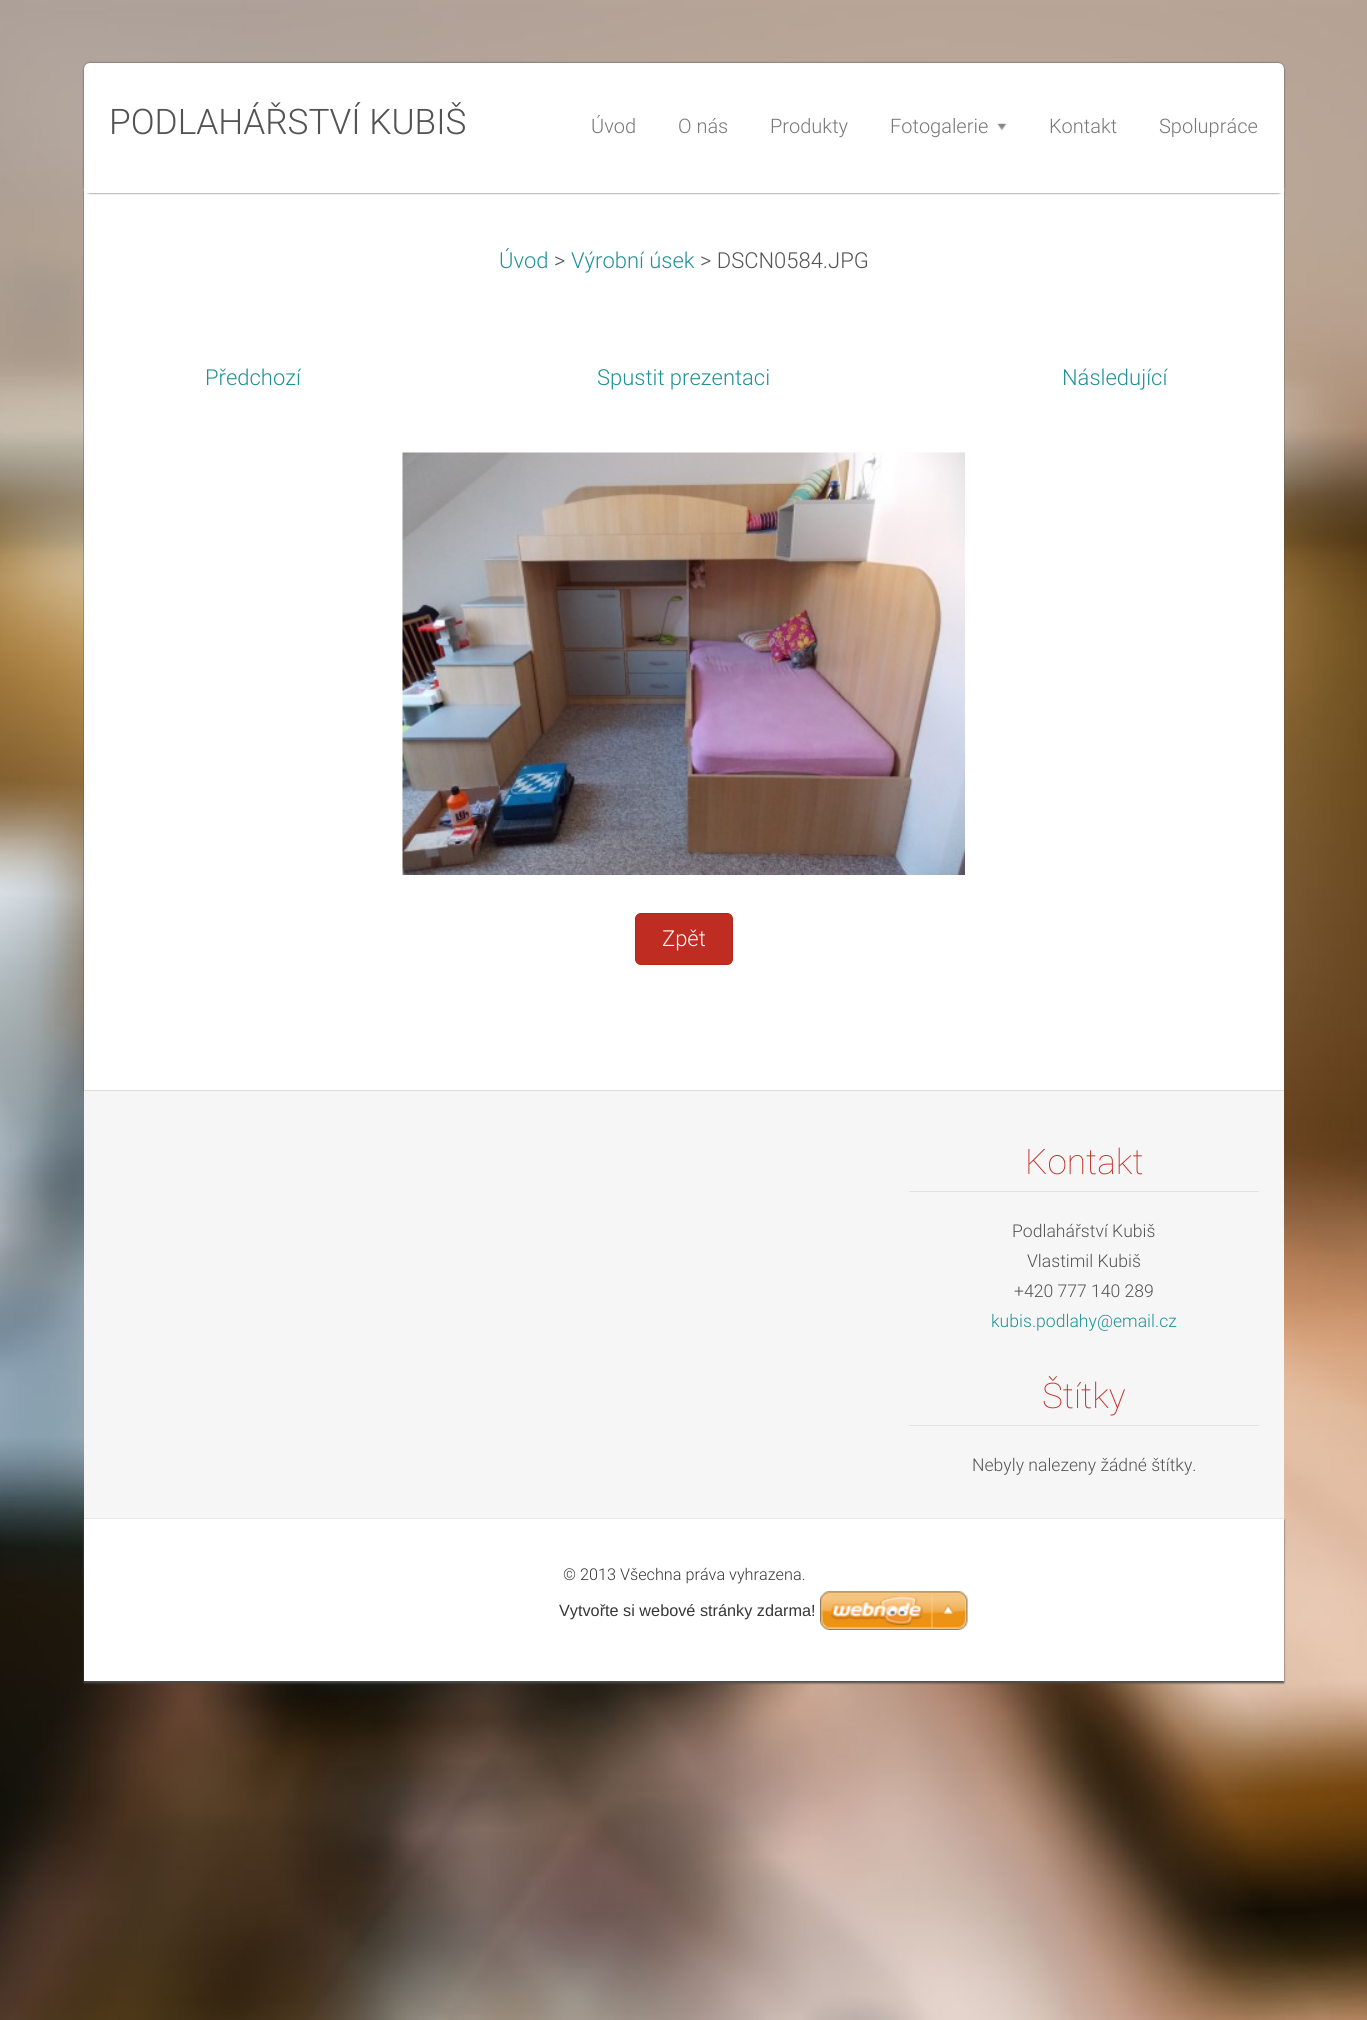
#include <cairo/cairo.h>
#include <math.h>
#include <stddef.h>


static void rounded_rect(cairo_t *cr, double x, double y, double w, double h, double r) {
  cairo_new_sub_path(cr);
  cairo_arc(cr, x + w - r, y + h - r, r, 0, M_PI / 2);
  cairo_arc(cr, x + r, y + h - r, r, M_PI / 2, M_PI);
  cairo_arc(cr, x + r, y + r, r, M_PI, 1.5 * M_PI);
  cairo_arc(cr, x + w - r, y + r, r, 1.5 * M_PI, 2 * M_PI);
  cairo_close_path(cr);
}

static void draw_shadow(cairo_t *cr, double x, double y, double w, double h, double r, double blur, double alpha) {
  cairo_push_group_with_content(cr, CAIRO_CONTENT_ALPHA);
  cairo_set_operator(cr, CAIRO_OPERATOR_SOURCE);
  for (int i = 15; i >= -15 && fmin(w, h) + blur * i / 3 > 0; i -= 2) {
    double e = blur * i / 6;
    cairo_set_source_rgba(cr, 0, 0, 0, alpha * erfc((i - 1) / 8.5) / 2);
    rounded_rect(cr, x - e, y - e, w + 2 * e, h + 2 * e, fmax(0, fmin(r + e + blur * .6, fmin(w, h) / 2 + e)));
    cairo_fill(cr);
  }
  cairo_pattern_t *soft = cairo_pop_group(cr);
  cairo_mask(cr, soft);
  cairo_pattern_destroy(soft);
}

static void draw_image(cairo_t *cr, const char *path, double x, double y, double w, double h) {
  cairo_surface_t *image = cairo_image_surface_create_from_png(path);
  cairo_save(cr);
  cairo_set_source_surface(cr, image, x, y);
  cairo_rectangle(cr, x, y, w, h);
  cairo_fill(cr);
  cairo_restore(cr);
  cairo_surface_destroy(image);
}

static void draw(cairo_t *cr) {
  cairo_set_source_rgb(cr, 1, 1, 1);
  cairo_paint(cr);
  draw_image(cr, "images/1.png", 0, 0, 1367, 2020);
  cairo_rectangle(cr, 83.5, 191.5, 1201, 899);
  cairo_set_source_rgba(cr, 76 / 255.0, 76 / 255.0, 76 / 255.0, 0.32);
  cairo_set_line_width(cr, 1);
  cairo_stroke(cr);
  cairo_set_source_rgb(cr, 1, 1, 1);
  cairo_rectangle(cr, 84, 193, 1200, 897);
  cairo_fill(cr);
  cairo_set_source_rgb(cr, 76 / 255.0, 76 / 255.0, 76 / 255.0);
  draw_shadow(cr, 84, 63, 1200, 130, 6, 1, 1);
  cairo_set_source_rgb(cr, 1, 1, 1);
  cairo_new_path(cr);
  cairo_move_to(cr, 90, 63);
  cairo_line_to(cr, 1278, 63);
  cairo_curve_to(cr, 1281.5, 63, 1284, 65.5, 1284, 69);
  cairo_line_to(cr, 1284, 193);
  cairo_line_to(cr, 84, 193);
  cairo_line_to(cr, 84, 69);
  cairo_curve_to(cr, 84, 65.5, 86.5, 63, 90, 63);
  cairo_close_path(cr);
  cairo_fill(cr);
  draw_image(cr, "images/2.png", 997, 123, 10, 8);
  draw_image(cr, "images/3.png", 402, 452, 563, 423);
  cairo_set_source_rgb(cr, 191 / 255.0, 44 / 255.0, 34 / 255.0);
  rounded_rect(cr, 635.5, 913.5, 97, 51, 5.5);
  cairo_fill_preserve(cr);
  cairo_set_source_rgb(cr, 181 / 255.0, 35 / 255.0, 26 / 255.0);
  cairo_stroke(cr);
  cairo_set_source_rgb(cr, 246 / 255.0, 246 / 255.0, 246 / 255.0);
  cairo_rectangle(cr, 84, 1091, 1200, 428);
  cairo_fill(cr);
  cairo_set_source_rgb(cr, 221 / 255.0, 221 / 255.0, 221 / 255.0);
  cairo_rectangle(cr, 84, 1090, 1200, 1);
  cairo_fill(cr);
  cairo_set_source_rgb(cr, 226 / 255.0, 226 / 255.0, 226 / 255.0);
  cairo_rectangle(cr, 909, 1191, 350, 1);
  cairo_fill(cr);
  cairo_rectangle(cr, 909, 1425, 350, 1);
  cairo_fill(cr);
  cairo_set_source_rgb(cr, 76 / 255.0, 76 / 255.0, 76 / 255.0);
  draw_shadow(cr, 84, 1520, 1200, 163, 0, 1, 1);
  cairo_set_source_rgb(cr, 1, 1, 1);
  cairo_rectangle(cr, 84, 1519, 1200, 162);
  cairo_fill(cr);
  draw_image(cr, "images/4.png", 820, 1591, 148, 39);
  cairo_select_font_face(cr, "Roboto Light", CAIRO_FONT_SLANT_NORMAL, CAIRO_FONT_WEIGHT_NORMAL);
  cairo_set_font_size(cr, 35.25);
  cairo_set_source_rgb(cr, 83 / 255.0, 83 / 255.0, 83 / 255.0);
  cairo_move_to(cr, 109, 134);
  cairo_show_text(cr, "PODLAHÁŘSTVÍ KUBIŠ");
  cairo_set_font_size(cr, 20);
  cairo_set_source_rgb(cr, 119 / 255.0, 119 / 255.0, 119 / 255.0);
  cairo_move_to(cr, 591, 133);
  cairo_show_text(cr, "Úvod");
  cairo_move_to(cr, 678, 133);
  cairo_show_text(cr, "O nás");
  cairo_move_to(cr, 770, 133);
  cairo_show_text(cr, "Produkty");
  cairo_move_to(cr, 890, 133);
  cairo_show_text(cr, "Fotogalerie");
  cairo_move_to(cr, 1049, 133);
  cairo_show_text(cr, "Kontakt");
  cairo_move_to(cr, 1159, 133);
  cairo_show_text(cr, "Spolupráce");
  cairo_set_font_size(cr, 22);
  cairo_set_source_rgb(cr, 30 / 255.0, 145 / 255.0, 149 / 255.0);
  cairo_move_to(cr, 499, 268);
  cairo_show_text(cr, "Úvod");
  cairo_set_source_rgb(cr, 83 / 255.0, 83 / 255.0, 83 / 255.0);
  cairo_move_to(cr, 554, 268);
  cairo_show_text(cr, ">");
  cairo_set_source_rgb(cr, 30 / 255.0, 145 / 255.0, 149 / 255.0);
  cairo_move_to(cr, 571, 268);
  cairo_show_text(cr, "Výrobní úsek");
  cairo_set_source_rgb(cr, 83 / 255.0, 83 / 255.0, 83 / 255.0);
  cairo_move_to(cr, 700, 268);
  cairo_show_text(cr, "> DSCN0584.JPG");
  cairo_set_source_rgb(cr, 30 / 255.0, 145 / 255.0, 149 / 255.0);
  cairo_move_to(cr, 205, 385);
  cairo_show_text(cr, "Předchozí");
  cairo_move_to(cr, 597, 385);
  cairo_show_text(cr, "Spustit prezentaci");
  cairo_move_to(cr, 1062, 385);
  cairo_show_text(cr, "Následující");
  cairo_set_source_rgb(cr, 1, 1, 1);
  cairo_move_to(cr, 662, 946);
  cairo_show_text(cr, "Zpět");
  cairo_select_font_face(cr, "Roboto Thin", CAIRO_FONT_SLANT_NORMAL, CAIRO_FONT_WEIGHT_NORMAL);
  cairo_set_font_size(cr, 35.25);
  cairo_set_source_rgb(cr, 191 / 255.0, 44 / 255.0, 34 / 255.0);
  cairo_move_to(cr, 1025, 1174);
  cairo_show_text(cr, "Kontakt");
  cairo_select_font_face(cr, "Roboto Light", CAIRO_FONT_SLANT_NORMAL, CAIRO_FONT_WEIGHT_NORMAL);
  cairo_set_font_size(cr, 17.6);
  cairo_set_source_rgb(cr, 83 / 255.0, 83 / 255.0, 83 / 255.0);
  cairo_move_to(cr, 1012, 1237);
  cairo_show_text(cr, "Podlahářství Kubiš");
  cairo_move_to(cr, 1027, 1267);
  cairo_show_text(cr, "Vlastimil Kubiš");
  cairo_move_to(cr, 1014, 1297);
  cairo_show_text(cr, "+420 777 140 289");
  cairo_set_source_rgb(cr, 30 / 255.0, 145 / 255.0, 149 / 255.0);
  cairo_move_to(cr, 991, 1327);
  cairo_show_text(cr, "kubis.podlahy@email.cz");
  cairo_select_font_face(cr, "Roboto Thin", CAIRO_FONT_SLANT_NORMAL, CAIRO_FONT_WEIGHT_NORMAL);
  cairo_set_font_size(cr, 35.25);
  cairo_set_source_rgb(cr, 191 / 255.0, 44 / 255.0, 34 / 255.0);
  cairo_move_to(cr, 1042, 1408);
  cairo_show_text(cr, "Štítky");
  cairo_select_font_face(cr, "Roboto Light", CAIRO_FONT_SLANT_NORMAL, CAIRO_FONT_WEIGHT_NORMAL);
  cairo_set_font_size(cr, 17.6);
  cairo_set_source_rgb(cr, 83 / 255.0, 83 / 255.0, 83 / 255.0);
  cairo_move_to(cr, 972, 1471);
  cairo_show_text(cr, "Nebyly nalezeny žádné štítky.");
  cairo_set_font_size(cr, 16.25);
  cairo_set_source_rgb(cr, 54 / 255.0, 54 / 255.0, 54 / 255.0);
  cairo_move_to(cr, 563, 1580);
  cairo_show_text(cr, "© 2013 Všechna práva vyhrazena.");
  cairo_select_font_face(cr, "Liberation Sans", CAIRO_FONT_SLANT_NORMAL, CAIRO_FONT_WEIGHT_NORMAL);
  cairo_move_to(cr, 559, 1616);
  cairo_show_text(cr, "Vytvořte si webové stránky zdarma!");
}

int main(void) {
  cairo_surface_t *surface = cairo_image_surface_create(CAIRO_FORMAT_RGB24, 1367, 2020);
  cairo_t *cr = cairo_create(surface);
  cairo_font_options_t *options = cairo_font_options_create();
  cairo_font_options_set_hint_metrics(options, CAIRO_HINT_METRICS_OFF);
  cairo_font_options_set_hint_style(options, CAIRO_HINT_STYLE_NONE);
  cairo_set_font_options(cr, options);
  cairo_set_miter_limit(cr, 4);
  draw(cr);
  cairo_surface_write_to_png(surface, "out.png");
  cairo_font_options_destroy(options);
  cairo_destroy(cr);
  cairo_surface_destroy(surface);
  return 0;
}
